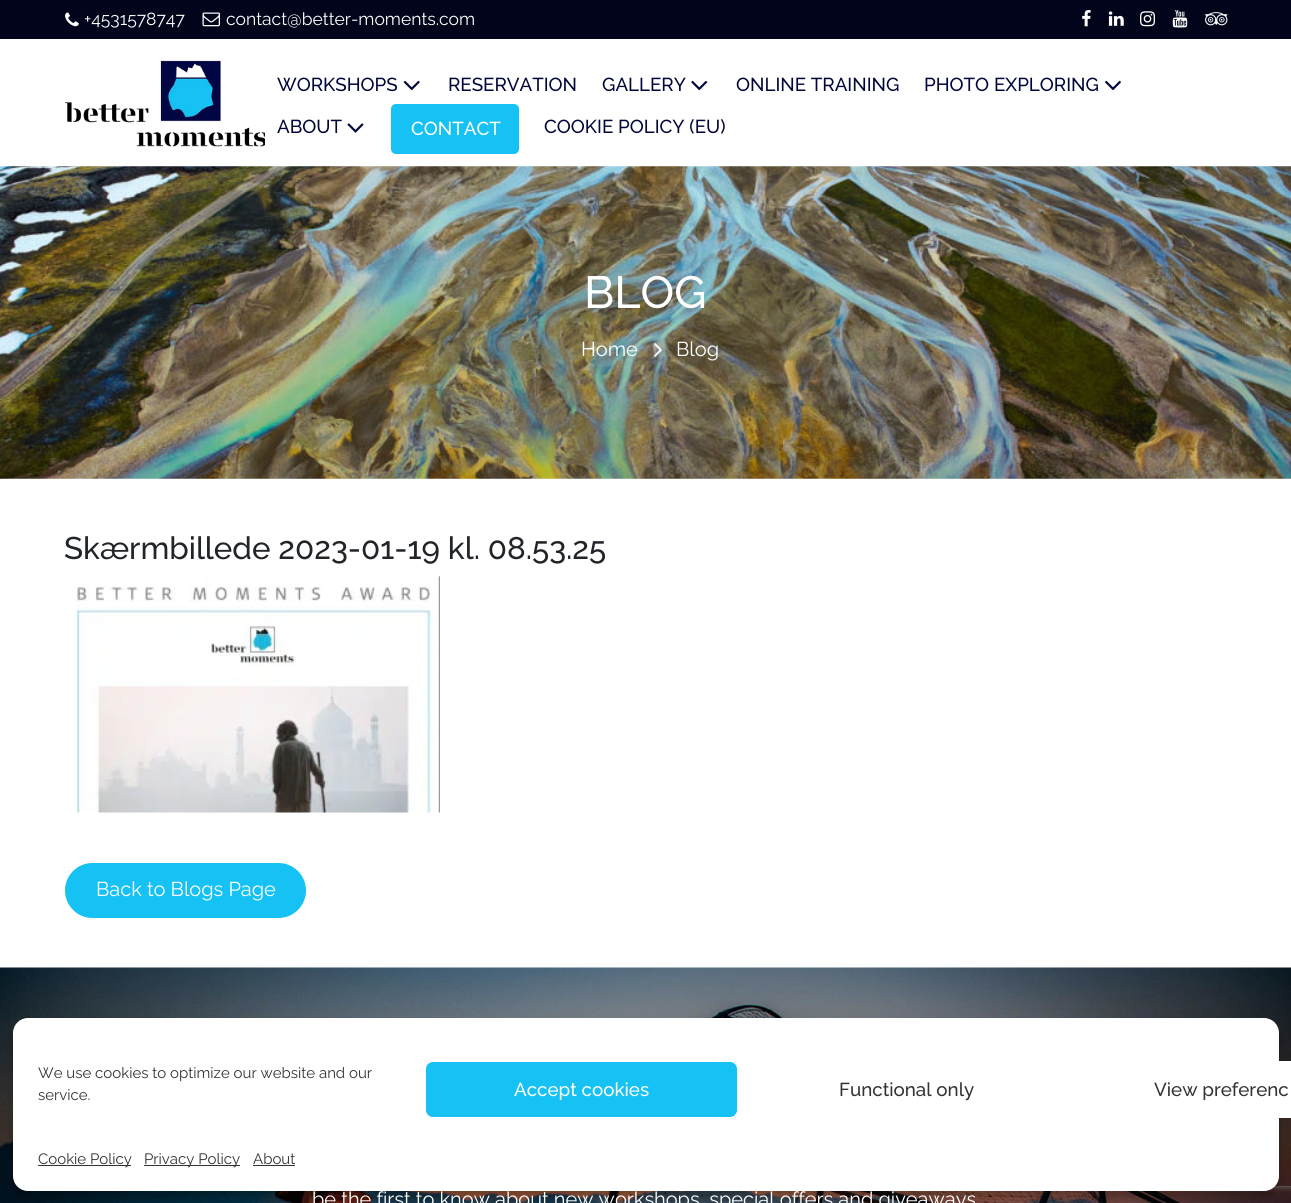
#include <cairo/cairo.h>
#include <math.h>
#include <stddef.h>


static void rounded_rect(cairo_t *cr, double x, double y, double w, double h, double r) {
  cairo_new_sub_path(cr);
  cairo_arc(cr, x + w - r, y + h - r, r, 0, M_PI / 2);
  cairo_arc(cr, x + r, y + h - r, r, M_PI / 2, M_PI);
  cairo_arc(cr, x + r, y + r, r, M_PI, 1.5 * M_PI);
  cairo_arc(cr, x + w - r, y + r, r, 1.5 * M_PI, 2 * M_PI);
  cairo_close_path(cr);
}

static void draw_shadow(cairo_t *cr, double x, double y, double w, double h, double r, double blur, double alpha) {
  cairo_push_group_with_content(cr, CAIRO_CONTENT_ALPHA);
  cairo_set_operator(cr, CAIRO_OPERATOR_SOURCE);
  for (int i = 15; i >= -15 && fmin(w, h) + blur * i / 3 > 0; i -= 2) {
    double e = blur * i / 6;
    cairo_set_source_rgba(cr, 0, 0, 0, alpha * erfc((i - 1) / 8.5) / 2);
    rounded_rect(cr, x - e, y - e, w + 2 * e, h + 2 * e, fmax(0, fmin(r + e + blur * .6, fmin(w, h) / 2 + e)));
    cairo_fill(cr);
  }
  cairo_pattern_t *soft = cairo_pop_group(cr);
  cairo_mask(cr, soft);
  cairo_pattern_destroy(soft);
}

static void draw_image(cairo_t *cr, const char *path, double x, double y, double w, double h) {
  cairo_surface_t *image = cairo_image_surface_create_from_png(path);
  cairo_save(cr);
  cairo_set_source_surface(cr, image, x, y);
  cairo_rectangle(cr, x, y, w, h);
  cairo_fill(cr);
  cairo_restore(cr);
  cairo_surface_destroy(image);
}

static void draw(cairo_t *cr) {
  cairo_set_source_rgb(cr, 1, 1, 1);
  cairo_paint(cr);
  cairo_set_source_rgb(cr, 2 / 255.0, 4 / 255.0, 27 / 255.0);
  cairo_rectangle(cr, 0, 0, 1291, 39);
  cairo_fill(cr);
  draw_image(cr, "images/1.png", 65, 12, 14, 15);
  draw_image(cr, "images/2.png", 202, 12, 18, 15);
  draw_image(cr, "images/3.png", 1082, 10, 9, 17);
  draw_image(cr, "images/4.png", 1108, 11, 16, 15);
  draw_image(cr, "images/5.png", 1140, 11, 15, 16);
  draw_image(cr, "images/6.png", 1172, 10, 16, 18);
  draw_image(cr, "images/7.png", 1205, 12, 23, 14);
  draw_image(cr, "images/8.png", 65, 60, 200, 87);
  draw_image(cr, "images/9.png", 403, 80, 17, 11);
  draw_image(cr, "images/10.png", 691, 80, 17, 11);
  draw_image(cr, "images/11.png", 1105, 80, 16, 11);
  draw_image(cr, "images/12.png", 347, 123, 17, 10);
  cairo_set_source_rgb(cr, 22 / 255.0, 193 / 255.0, 243 / 255.0);
  rounded_rect(cr, 391, 104, 128, 50, 5);
  cairo_fill(cr);
  draw_image(cr, "images/13.png", 0, 166, 1291, 313);
  draw_image(cr, "images/14.png", 654, 343, 8, 14);
  draw_image(cr, "images/15.png", 75, 576, 365, 237);
  rounded_rect(cr, 65, 863, 241, 55, 27.5);
  cairo_fill(cr);
  draw_image(cr, "images/16.png", 0, 967, 1291, 236);
  cairo_set_source_rgb(cr, 0, 0, 0);
  draw_shadow(cr, 13, 1025, 1266, 174, 15, 4, 0.23);
  draw_shadow(cr, 13, 1030, 1266, 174, 15, 12.5, 0.19);
  cairo_save(cr);
  cairo_rectangle(cr, 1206, 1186, 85, 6);
  cairo_clip(cr);
  cairo_set_source_rgb(cr, 128 / 255.0, 128 / 255.0, 128 / 255.0);
  draw_shadow(cr, 1204, 1111, 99, 75, 2.5, 3, 1);
  cairo_restore(cr);
  cairo_set_source_rgb(cr, 1, 1, 1);
  rounded_rect(cr, 13, 1018, 1266, 173, 15);
  cairo_fill(cr);
  cairo_set_source_rgb(cr, 22 / 255.0, 193 / 255.0, 243 / 255.0);
  rounded_rect(cr, 425.5, 1061.5, 312, 56, 7.5);
  cairo_fill_preserve(cr);
  cairo_set_source_rgb(cr, 1, 1, 1);
  cairo_set_line_width(cr, 1);
  cairo_stroke(cr);
  rounded_rect(cr, 1075, 1061, 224, 57, 8);
  cairo_fill(cr);
  cairo_set_source_rgb(cr, 51 / 255.0, 51 / 255.0, 51 / 255.0);
  cairo_rectangle(cr, 38, 1165, 93, 1);
  cairo_fill(cr);
  cairo_rectangle(cr, 144, 1165, 96, 1);
  cairo_fill(cr);
  cairo_rectangle(cr, 253, 1165, 42, 1);
  cairo_fill(cr);
  cairo_select_font_face(cr, "Raleway", CAIRO_FONT_SLANT_NORMAL, CAIRO_FONT_WEIGHT_NORMAL);
  cairo_set_font_size(cr, 17.5);
  cairo_set_source_rgb(cr, 1, 1, 1);
  cairo_move_to(cr, 84, 25);
  cairo_show_text(cr, "+4531578747");
  cairo_move_to(cr, 226, 25);
  cairo_show_text(cr, "contact@better-moments.com");
  cairo_select_font_face(cr, "Raleway Medium", CAIRO_FONT_SLANT_NORMAL, CAIRO_FONT_WEIGHT_NORMAL);
  cairo_set_font_size(cr, 18.75);
  cairo_set_source_rgb(cr, 1 / 255.0, 6 / 255.0, 58 / 255.0);
  cairo_move_to(cr, 277, 91);
  cairo_show_text(cr, "WORKSHOPS");
  cairo_move_to(cr, 448, 91);
  cairo_show_text(cr, "RESERVATION");
  cairo_move_to(cr, 602, 91);
  cairo_show_text(cr, "GALLERY");
  cairo_move_to(cr, 736, 91);
  cairo_show_text(cr, "ONLINE TRAINING");
  cairo_move_to(cr, 924, 91);
  cairo_show_text(cr, "PHOTO EXPLORING");
  cairo_move_to(cr, 277, 133);
  cairo_show_text(cr, "ABOUT");
  cairo_set_source_rgb(cr, 1, 1, 1);
  cairo_move_to(cr, 411, 135);
  cairo_show_text(cr, "CONTACT");
  cairo_set_source_rgb(cr, 1 / 255.0, 6 / 255.0, 58 / 255.0);
  cairo_move_to(cr, 544, 133);
  cairo_show_text(cr, "COOKIE POLICY (EU)");
  cairo_set_font_size(cr, 45);
  cairo_set_source_rgb(cr, 1, 1, 1);
  cairo_move_to(cr, 584, 308);
  cairo_show_text(cr, "BLOG");
  cairo_select_font_face(cr, "Raleway", CAIRO_FONT_SLANT_NORMAL, CAIRO_FONT_WEIGHT_NORMAL);
  cairo_set_font_size(cr, 20);
  cairo_move_to(cr, 581, 356);
  cairo_show_text(cr, "Home");
  cairo_move_to(cr, 676, 356);
  cairo_show_text(cr, "Blog");
  cairo_select_font_face(cr, "Raleway Medium", CAIRO_FONT_SLANT_NORMAL, CAIRO_FONT_WEIGHT_NORMAL);
  cairo_set_font_size(cr, 31.25);
  cairo_set_source_rgb(cr, 33 / 255.0, 37 / 255.0, 41 / 255.0);
  cairo_move_to(cr, 64, 559);
  cairo_show_text(cr, "Skærmbillede 2023-01-19 kl. 08.53.25");
  cairo_select_font_face(cr, "Raleway", CAIRO_FONT_SLANT_NORMAL, CAIRO_FONT_WEIGHT_NORMAL);
  cairo_set_font_size(cr, 20);
  cairo_set_source_rgb(cr, 1, 1, 1);
  cairo_move_to(cr, 96, 896);
  cairo_show_text(cr, "Back to Blogs Page");
  cairo_set_font_size(cr, 15);
  cairo_set_source_rgb(cr, 51 / 255.0, 51 / 255.0, 51 / 255.0);
  cairo_move_to(cr, 38, 1078);
  cairo_show_text(cr, "We use cookies to optimize our website and our");
  cairo_move_to(cr, 38, 1100);
  cairo_show_text(cr, "service.");
  cairo_select_font_face(cr, "Raleway Medium", CAIRO_FONT_SLANT_NORMAL, CAIRO_FONT_WEIGHT_NORMAL);
  cairo_set_font_size(cr, 18.75);
  cairo_set_source_rgb(cr, 1, 1, 1);
  cairo_move_to(cr, 514, 1096);
  cairo_show_text(cr, "Accept cookies");
  cairo_set_source_rgb(cr, 51 / 255.0, 51 / 255.0, 51 / 255.0);
  cairo_move_to(cr, 839, 1096);
  cairo_show_text(cr, "Functional only");
  cairo_move_to(cr, 1154, 1096);
  cairo_show_text(cr, "View preferenc");
  cairo_select_font_face(cr, "Raleway", CAIRO_FONT_SLANT_NORMAL, CAIRO_FONT_WEIGHT_NORMAL);
  cairo_set_font_size(cr, 15);
  cairo_move_to(cr, 38, 1164);
  cairo_show_text(cr, "Cookie Policy");
  cairo_move_to(cr, 144, 1164);
  cairo_show_text(cr, "Privacy Policy");
  cairo_move_to(cr, 253, 1164);
  cairo_show_text(cr, "About");
  cairo_set_font_size(cr, 20);
  cairo_set_source_rgb(cr, 1, 1, 1);
  cairo_move_to(cr, 312, 1206);
  cairo_show_text(cr, "be the first to know about new workshops, special offers and giveaways");
}

int main(void) {
  cairo_surface_t *surface = cairo_image_surface_create(CAIRO_FORMAT_RGB24, 1291, 1203);
  cairo_t *cr = cairo_create(surface);
  cairo_font_options_t *options = cairo_font_options_create();
  cairo_font_options_set_hint_metrics(options, CAIRO_HINT_METRICS_OFF);
  cairo_font_options_set_hint_style(options, CAIRO_HINT_STYLE_NONE);
  cairo_set_font_options(cr, options);
  cairo_set_miter_limit(cr, 4);
  draw(cr);
  cairo_surface_write_to_png(surface, "out.png");
  cairo_font_options_destroy(options);
  cairo_destroy(cr);
  cairo_surface_destroy(surface);
  return 0;
}
